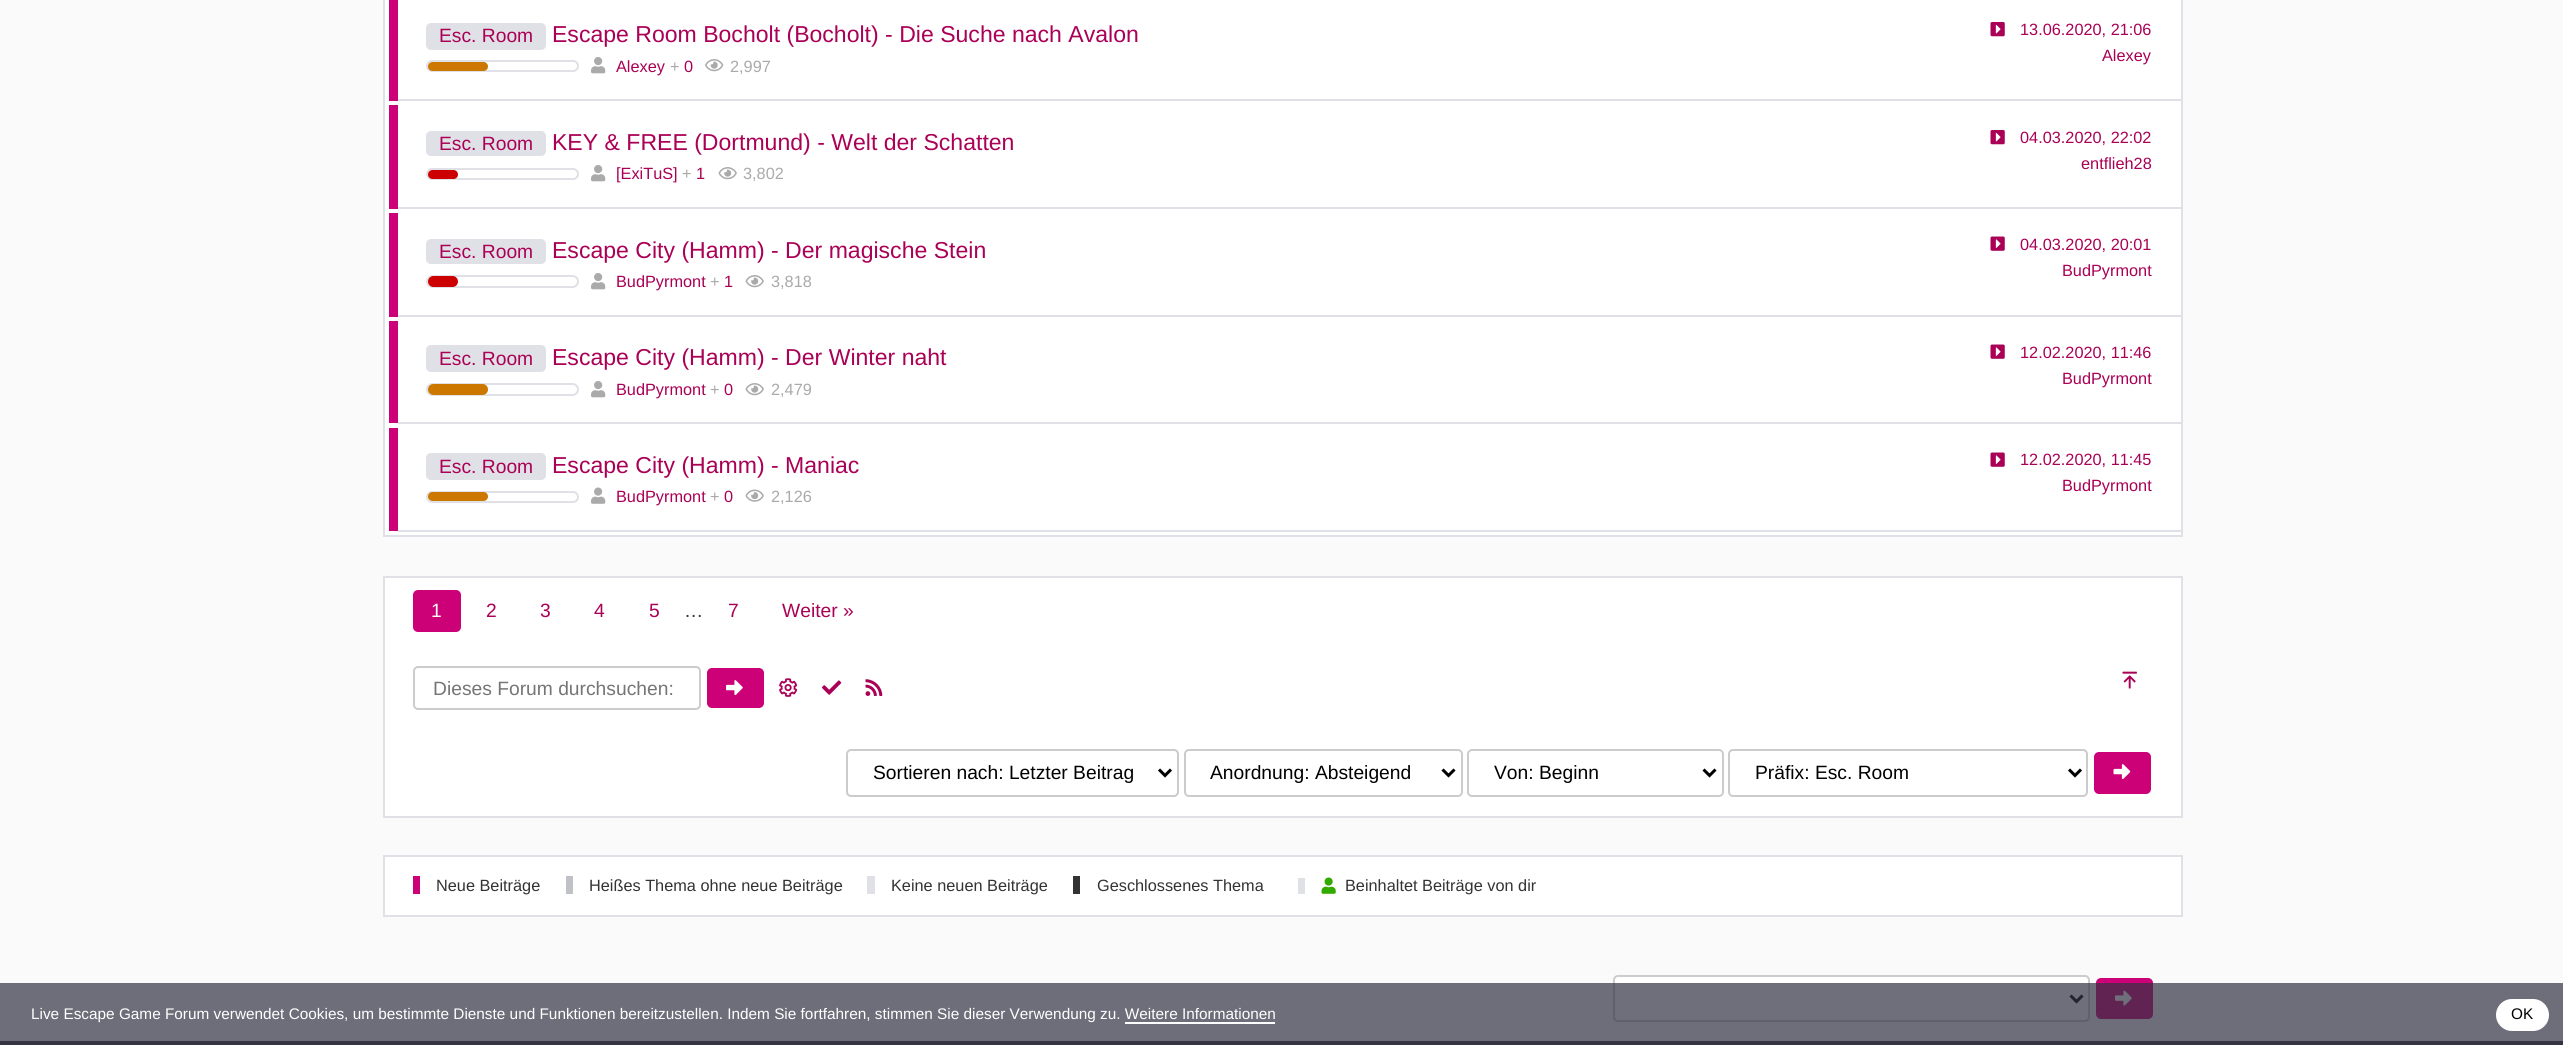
#include <cairo/cairo.h>
#include <math.h>
#include <stddef.h>


static void rounded_rect(cairo_t *cr, double x, double y, double w, double h, double r) {
  cairo_new_sub_path(cr);
  cairo_arc(cr, x + w - r, y + h - r, r, 0, M_PI / 2);
  cairo_arc(cr, x + r, y + h - r, r, M_PI / 2, M_PI);
  cairo_arc(cr, x + r, y + r, r, M_PI, 1.5 * M_PI);
  cairo_arc(cr, x + w - r, y + r, r, 1.5 * M_PI, 2 * M_PI);
  cairo_close_path(cr);
}

static void draw_image(cairo_t *cr, const char *path, double x, double y, double w, double h) {
  cairo_surface_t *image = cairo_image_surface_create_from_png(path);
  cairo_save(cr);
  cairo_set_source_surface(cr, image, x, y);
  cairo_rectangle(cr, x, y, w, h);
  cairo_fill(cr);
  cairo_restore(cr);
  cairo_surface_destroy(image);
}

static void draw(cairo_t *cr) {
  cairo_set_source_rgb(cr, 250 / 255.0, 250 / 255.0, 250 / 255.0);
  cairo_paint(cr);
  cairo_set_source_rgb(cr, 1, 1, 1);
  cairo_rectangle(cr, 384, -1, 1798, 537);
  cairo_fill_preserve(cr);
  cairo_set_source_rgb(cr, 224 / 255.0, 224 / 255.0, 231 / 255.0);
  cairo_stroke(cr);
  cairo_set_source_rgb(cr, 204 / 255.0, 0, 119 / 255.0);
  cairo_rectangle(cr, 389, 0, 9, 101);
  cairo_fill(cr);
  cairo_set_source_rgb(cr, 224 / 255.0, 224 / 255.0, 231 / 255.0);
  cairo_rectangle(cr, 398, 99, 1783, 2);
  cairo_fill(cr);
  rounded_rect(cr, 426, 23, 120, 27, 5);
  cairo_fill(cr);
  rounded_rect(cr, 427, 61, 151, 10, 5);
  cairo_stroke(cr);
  cairo_set_source_rgb(cr, 204 / 255.0, 119 / 255.0, 0);
  rounded_rect(cr, 428, 62, 60, 9, 4.5);
  cairo_fill(cr);
  draw_image(cr, "images/1.png", 591, 57, 15, 17);
  draw_image(cr, "images/2.png", 705, 59, 19, 13);
  draw_image(cr, "images/3.png", 1990, 22, 15, 15);
  cairo_set_source_rgb(cr, 204 / 255.0, 0, 119 / 255.0);
  cairo_rectangle(cr, 389, 105, 9, 104);
  cairo_fill(cr);
  cairo_set_source_rgb(cr, 224 / 255.0, 224 / 255.0, 231 / 255.0);
  cairo_rectangle(cr, 398, 207, 1783, 2);
  cairo_fill(cr);
  rounded_rect(cr, 426, 131, 120, 25, 5);
  cairo_fill(cr);
  rounded_rect(cr, 427, 169, 151, 10, 5);
  cairo_stroke(cr);
  cairo_set_source_rgb(cr, 204 / 255.0, 0, 0);
  rounded_rect(cr, 428, 170, 30, 9, 4.5);
  cairo_fill(cr);
  draw_image(cr, "images/1.png", 591, 165, 15, 17);
  draw_image(cr, "images/4.png", 718, 167, 19, 13);
  draw_image(cr, "images/3.png", 1990, 130, 15, 15);
  cairo_set_source_rgb(cr, 204 / 255.0, 0, 119 / 255.0);
  cairo_rectangle(cr, 389, 213, 9, 104);
  cairo_fill(cr);
  cairo_set_source_rgb(cr, 224 / 255.0, 224 / 255.0, 231 / 255.0);
  cairo_rectangle(cr, 398, 315, 1783, 2);
  cairo_fill(cr);
  rounded_rect(cr, 426, 239, 120, 25, 5);
  cairo_fill(cr);
  rounded_rect(cr, 427, 276, 151, 11, 5.5);
  cairo_stroke(cr);
  cairo_set_source_rgb(cr, 204 / 255.0, 0, 0);
  rounded_rect(cr, 428, 276, 30, 11, 5.5);
  cairo_fill(cr);
  draw_image(cr, "images/1.png", 591, 273, 15, 17);
  draw_image(cr, "images/4.png", 745, 275, 19, 13);
  draw_image(cr, "images/5.png", 1990, 236, 15, 15);
  cairo_set_source_rgb(cr, 204 / 255.0, 0, 119 / 255.0);
  cairo_rectangle(cr, 389, 321, 9, 102);
  cairo_fill(cr);
  cairo_set_source_rgb(cr, 224 / 255.0, 224 / 255.0, 231 / 255.0);
  cairo_rectangle(cr, 398, 422, 1783, 2);
  cairo_fill(cr);
  rounded_rect(cr, 426, 345, 120, 27, 5);
  cairo_fill(cr);
  rounded_rect(cr, 427, 384, 151, 11, 5.5);
  cairo_stroke(cr);
  cairo_set_source_rgb(cr, 204 / 255.0, 119 / 255.0, 0);
  rounded_rect(cr, 428, 384, 60, 11, 5.5);
  cairo_fill(cr);
  draw_image(cr, "images/1.png", 591, 381, 15, 17);
  draw_image(cr, "images/4.png", 745, 383, 19, 13);
  draw_image(cr, "images/5.png", 1990, 344, 15, 15);
  cairo_set_source_rgb(cr, 204 / 255.0, 0, 119 / 255.0);
  cairo_rectangle(cr, 389, 428, 9, 103);
  cairo_fill(cr);
  cairo_set_source_rgb(cr, 224 / 255.0, 224 / 255.0, 231 / 255.0);
  cairo_rectangle(cr, 398, 530, 1783, 2);
  cairo_fill(cr);
  rounded_rect(cr, 426, 453, 120, 27, 5);
  cairo_fill(cr);
  rounded_rect(cr, 427, 492, 151, 10, 5);
  cairo_stroke(cr);
  cairo_set_source_rgb(cr, 204 / 255.0, 119 / 255.0, 0);
  rounded_rect(cr, 428, 492, 60, 9, 4.5);
  cairo_fill(cr);
  draw_image(cr, "images/6.png", 591, 487, 15, 17);
  draw_image(cr, "images/7.png", 745, 489, 19, 13);
  draw_image(cr, "images/5.png", 1990, 452, 15, 15);
  cairo_set_source_rgb(cr, 1, 1, 1);
  cairo_rectangle(cr, 384, 577, 1798, 240);
  cairo_fill_preserve(cr);
  cairo_set_source_rgb(cr, 224 / 255.0, 224 / 255.0, 231 / 255.0);
  cairo_stroke(cr);
  cairo_set_source_rgb(cr, 204 / 255.0, 0, 119 / 255.0);
  rounded_rect(cr, 413, 590, 48, 42, 5);
  cairo_fill(cr);
  rounded_rect(cr, 414, 667, 286, 42, 4);
  cairo_set_source_rgb(cr, 204 / 255.0, 204 / 255.0, 204 / 255.0);
  cairo_stroke(cr);
  cairo_set_source_rgb(cr, 204 / 255.0, 0, 119 / 255.0);
  rounded_rect(cr, 707, 668, 57, 40, 5);
  cairo_fill(cr);
  draw_image(cr, "images/8.png", 726, 680, 17, 16);
  draw_image(cr, "images/9.png", 779, 678, 19, 19);
  draw_image(cr, "images/10.png", 822, 680, 20, 15);
  draw_image(cr, "images/11.png", 865, 679, 18, 17);
  draw_image(cr, "images/12.png", 2122, 671, 15, 18);
  rounded_rect(cr, 847, 750, 331, 46, 4);
  cairo_set_source_rgb(cr, 204 / 255.0, 204 / 255.0, 204 / 255.0);
  cairo_stroke(cr);
  cairo_new_path(cr);
  cairo_move_to(cr, 1159, 769.5);
  cairo_line_to(cr, 1165, 775.5);
  cairo_line_to(cr, 1171, 769.5);
  cairo_set_source_rgb(cr, 0, 0, 0);
  cairo_set_line_width(cr, 3);
  cairo_stroke(cr);
  rounded_rect(cr, 1185, 750, 277, 46, 4);
  cairo_set_source_rgb(cr, 204 / 255.0, 204 / 255.0, 204 / 255.0);
  cairo_set_line_width(cr, 2);
  cairo_stroke(cr);
  cairo_new_path(cr);
  cairo_move_to(cr, 1442.5, 769.5);
  cairo_line_to(cr, 1448.5, 775.5);
  cairo_line_to(cr, 1454.5, 769.5);
  cairo_set_source_rgb(cr, 0, 0, 0);
  cairo_set_line_width(cr, 3);
  cairo_stroke(cr);
  rounded_rect(cr, 1468, 750, 255, 46, 4);
  cairo_set_source_rgb(cr, 204 / 255.0, 204 / 255.0, 204 / 255.0);
  cairo_set_line_width(cr, 2);
  cairo_stroke(cr);
  cairo_new_path(cr);
  cairo_move_to(cr, 1703.5, 769.5);
  cairo_line_to(cr, 1709.5, 775.5);
  cairo_line_to(cr, 1715.5, 769.5);
  cairo_set_source_rgb(cr, 0, 0, 0);
  cairo_set_line_width(cr, 3);
  cairo_stroke(cr);
  rounded_rect(cr, 1729, 750, 358, 46, 4);
  cairo_set_source_rgb(cr, 204 / 255.0, 204 / 255.0, 204 / 255.0);
  cairo_set_line_width(cr, 2);
  cairo_stroke(cr);
  cairo_new_path(cr);
  cairo_move_to(cr, 2069, 769.5);
  cairo_line_to(cr, 2075, 775.5);
  cairo_line_to(cr, 2081, 769.5);
  cairo_set_source_rgb(cr, 0, 0, 0);
  cairo_set_line_width(cr, 3);
  cairo_stroke(cr);
  cairo_set_source_rgb(cr, 204 / 255.0, 0, 119 / 255.0);
  rounded_rect(cr, 2094, 752, 57, 42, 5);
  cairo_fill(cr);
  draw_image(cr, "images/13.png", 2113, 764, 18, 16);
  cairo_set_source_rgb(cr, 1, 1, 1);
  cairo_rectangle(cr, 384, 856, 1798, 60);
  cairo_fill_preserve(cr);
  cairo_set_source_rgb(cr, 224 / 255.0, 224 / 255.0, 231 / 255.0);
  cairo_set_line_width(cr, 2);
  cairo_stroke(cr);
  cairo_set_source_rgb(cr, 204 / 255.0, 0, 119 / 255.0);
  cairo_rectangle(cr, 413, 876, 7, 18);
  cairo_fill(cr);
  cairo_set_source_rgb(cr, 192 / 255.0, 192 / 255.0, 199 / 255.0);
  cairo_rectangle(cr, 566, 876, 7, 18);
  cairo_fill(cr);
  cairo_set_source_rgb(cr, 224 / 255.0, 224 / 255.0, 231 / 255.0);
  cairo_rectangle(cr, 867, 876, 8, 18);
  cairo_fill(cr);
  cairo_set_source_rgb(cr, 51 / 255.0, 51 / 255.0, 51 / 255.0);
  cairo_rectangle(cr, 1073, 876, 7, 18);
  cairo_fill(cr);
  draw_image(cr, "images/14.png", 1321, 877, 15, 17);
  cairo_set_source_rgb(cr, 224 / 255.0, 224 / 255.0, 231 / 255.0);
  cairo_rectangle(cr, 1298, 878, 7, 16);
  cairo_fill(cr);
  cairo_set_source_rgb(cr, 1, 1, 1);
  rounded_rect(cr, 1614, 976, 475, 45, 4);
  cairo_fill_preserve(cr);
  cairo_set_source_rgb(cr, 204 / 255.0, 204 / 255.0, 204 / 255.0);
  cairo_stroke(cr);
  cairo_new_path(cr);
  cairo_move_to(cr, 2070.5, 995.5);
  cairo_line_to(cr, 2076.5, 1001.5);
  cairo_line_to(cr, 2082.5, 995.5);
  cairo_set_source_rgb(cr, 0, 0, 0);
  cairo_set_line_width(cr, 3);
  cairo_stroke(cr);
  cairo_set_source_rgb(cr, 204 / 255.0, 0, 119 / 255.0);
  rounded_rect(cr, 2096, 978, 57, 41, 5);
  cairo_fill(cr);
  draw_image(cr, "images/15.png", 2115, 990, 17, 16);
  cairo_set_source_rgb(cr, 51 / 255.0, 51 / 255.0, 68 / 255.0);
  cairo_rectangle(cr, 0, 1041, 2563, 4);
  cairo_fill(cr);
  cairo_set_source_rgba(cr, 51 / 255.0, 51 / 255.0, 68 / 255.0, 0.7);
  cairo_rectangle(cr, 0, 983, 2563, 58);
  cairo_fill(cr);
  cairo_set_source_rgb(cr, 1, 1, 1);
  cairo_rectangle(cr, 1125, 1022, 150, 2);
  cairo_fill(cr);
  rounded_rect(cr, 2496, 999, 53, 32, 16);
  cairo_fill(cr);
  cairo_select_font_face(cr, "Liberation Sans", CAIRO_FONT_SLANT_NORMAL, CAIRO_FONT_WEIGHT_NORMAL);
  cairo_set_font_size(cr, 19.25);
  cairo_set_source_rgb(cr, 170 / 255.0, 0, 85 / 255.0);
  cairo_move_to(cr, 439, 42);
  cairo_show_text(cr, "Esc. Room");
  cairo_set_font_size(cr, 23.05);
  cairo_move_to(cr, 552, 42);
  cairo_show_text(cr, "Escape Room Bocholt (Bocholt) - Die Suche nach Avalon");
  cairo_set_font_size(cr, 16.3);
  cairo_move_to(cr, 616, 72);
  cairo_show_text(cr, "Alexey");
  cairo_set_source_rgb(cr, 170 / 255.0, 170 / 255.0, 170 / 255.0);
  cairo_move_to(cr, 670, 72);
  cairo_show_text(cr, "+");
  cairo_set_source_rgb(cr, 170 / 255.0, 0, 85 / 255.0);
  cairo_move_to(cr, 684, 72);
  cairo_show_text(cr, "0");
  cairo_set_source_rgb(cr, 170 / 255.0, 170 / 255.0, 170 / 255.0);
  cairo_move_to(cr, 730, 72);
  cairo_show_text(cr, "2,997");
  cairo_set_source_rgb(cr, 170 / 255.0, 0, 85 / 255.0);
  cairo_move_to(cr, 2020, 35);
  cairo_show_text(cr, "13.06.2020, 21:06");
  cairo_move_to(cr, 2102, 61);
  cairo_show_text(cr, "Alexey");
  cairo_set_font_size(cr, 19.25);
  cairo_move_to(cr, 439, 150);
  cairo_show_text(cr, "Esc. Room");
  cairo_set_font_size(cr, 23.05);
  cairo_move_to(cr, 552, 150);
  cairo_show_text(cr, "KEY & FREE (Dortmund) - Welt der Schatten");
  cairo_set_font_size(cr, 16.3);
  cairo_move_to(cr, 616, 179);
  cairo_show_text(cr, "[ExiTuS]");
  cairo_set_source_rgb(cr, 170 / 255.0, 170 / 255.0, 170 / 255.0);
  cairo_move_to(cr, 682, 179);
  cairo_show_text(cr, "+");
  cairo_set_source_rgb(cr, 170 / 255.0, 0, 85 / 255.0);
  cairo_move_to(cr, 696, 179);
  cairo_show_text(cr, "1");
  cairo_set_source_rgb(cr, 170 / 255.0, 170 / 255.0, 170 / 255.0);
  cairo_move_to(cr, 743, 179);
  cairo_show_text(cr, "3,802");
  cairo_set_source_rgb(cr, 170 / 255.0, 0, 85 / 255.0);
  cairo_move_to(cr, 2020, 143);
  cairo_show_text(cr, "04.03.2020, 22:02");
  cairo_move_to(cr, 2081, 169);
  cairo_show_text(cr, "entflieh28");
  cairo_set_font_size(cr, 19.25);
  cairo_move_to(cr, 439, 258);
  cairo_show_text(cr, "Esc. Room");
  cairo_set_font_size(cr, 23.05);
  cairo_move_to(cr, 552, 258);
  cairo_show_text(cr, "Escape City (Hamm) - Der magische Stein");
  cairo_set_font_size(cr, 16.3);
  cairo_move_to(cr, 616, 287);
  cairo_show_text(cr, "BudPyrmont");
  cairo_set_source_rgb(cr, 170 / 255.0, 170 / 255.0, 170 / 255.0);
  cairo_move_to(cr, 710, 287);
  cairo_show_text(cr, "+");
  cairo_set_source_rgb(cr, 170 / 255.0, 0, 85 / 255.0);
  cairo_move_to(cr, 724, 287);
  cairo_show_text(cr, "1");
  cairo_set_source_rgb(cr, 170 / 255.0, 170 / 255.0, 170 / 255.0);
  cairo_move_to(cr, 771, 287);
  cairo_show_text(cr, "3,818");
  cairo_set_source_rgb(cr, 170 / 255.0, 0, 85 / 255.0);
  cairo_move_to(cr, 2020, 250);
  cairo_show_text(cr, "04.03.2020, 20:01");
  cairo_move_to(cr, 2062, 276);
  cairo_show_text(cr, "BudPyrmont");
  cairo_set_font_size(cr, 19.25);
  cairo_move_to(cr, 439, 365);
  cairo_show_text(cr, "Esc. Room");
  cairo_set_font_size(cr, 23.05);
  cairo_move_to(cr, 552, 365);
  cairo_show_text(cr, "Escape City (Hamm) - Der Winter naht");
  cairo_set_font_size(cr, 16.3);
  cairo_move_to(cr, 616, 395);
  cairo_show_text(cr, "BudPyrmont");
  cairo_set_source_rgb(cr, 170 / 255.0, 170 / 255.0, 170 / 255.0);
  cairo_move_to(cr, 710, 395);
  cairo_show_text(cr, "+");
  cairo_set_source_rgb(cr, 170 / 255.0, 0, 85 / 255.0);
  cairo_move_to(cr, 724, 395);
  cairo_show_text(cr, "0");
  cairo_set_source_rgb(cr, 170 / 255.0, 170 / 255.0, 170 / 255.0);
  cairo_move_to(cr, 771, 395);
  cairo_show_text(cr, "2,479");
  cairo_set_source_rgb(cr, 170 / 255.0, 0, 85 / 255.0);
  cairo_move_to(cr, 2020, 358);
  cairo_show_text(cr, "12.02.2020, 11:46");
  cairo_move_to(cr, 2062, 384);
  cairo_show_text(cr, "BudPyrmont");
  cairo_set_font_size(cr, 19.25);
  cairo_move_to(cr, 439, 473);
  cairo_show_text(cr, "Esc. Room");
  cairo_set_font_size(cr, 23.05);
  cairo_move_to(cr, 552, 473);
  cairo_show_text(cr, "Escape City (Hamm) - Maniac");
  cairo_set_font_size(cr, 16.3);
  cairo_move_to(cr, 616, 502);
  cairo_show_text(cr, "BudPyrmont");
  cairo_set_source_rgb(cr, 170 / 255.0, 170 / 255.0, 170 / 255.0);
  cairo_move_to(cr, 710, 502);
  cairo_show_text(cr, "+");
  cairo_set_source_rgb(cr, 170 / 255.0, 0, 85 / 255.0);
  cairo_move_to(cr, 724, 502);
  cairo_show_text(cr, "0");
  cairo_set_source_rgb(cr, 170 / 255.0, 170 / 255.0, 170 / 255.0);
  cairo_move_to(cr, 771, 502);
  cairo_show_text(cr, "2,126");
  cairo_set_source_rgb(cr, 170 / 255.0, 0, 85 / 255.0);
  cairo_move_to(cr, 2020, 465);
  cairo_show_text(cr, "12.02.2020, 11:45");
  cairo_move_to(cr, 2062, 491);
  cairo_show_text(cr, "BudPyrmont");
  cairo_set_font_size(cr, 19.25);
  cairo_set_source_rgb(cr, 1, 1, 1);
  cairo_move_to(cr, 431, 617);
  cairo_show_text(cr, "1");
  cairo_set_source_rgb(cr, 170 / 255.0, 0, 85 / 255.0);
  cairo_move_to(cr, 486, 617);
  cairo_show_text(cr, "2");
  cairo_move_to(cr, 540, 617);
  cairo_show_text(cr, "3");
  cairo_move_to(cr, 594, 617);
  cairo_show_text(cr, "4");
  cairo_move_to(cr, 649, 617);
  cairo_show_text(cr, "5");
  cairo_set_source_rgb(cr, 51 / 255.0, 51 / 255.0, 51 / 255.0);
  cairo_move_to(cr, 684, 617);
  cairo_show_text(cr, "…");
  cairo_set_source_rgb(cr, 170 / 255.0, 0, 85 / 255.0);
  cairo_move_to(cr, 728, 617);
  cairo_show_text(cr, "7");
  cairo_move_to(cr, 782, 617);
  cairo_show_text(cr, "Weiter »");
  cairo_set_source_rgb(cr, 117 / 255.0, 117 / 255.0, 117 / 255.0);
  cairo_move_to(cr, 433, 695);
  cairo_show_text(cr, "Dieses Forum durchsuchen:");
  cairo_set_source_rgb(cr, 0, 0, 0);
  cairo_move_to(cr, 873, 779);
  cairo_show_text(cr, "Sortieren nach: Letzter Beitrag");
  cairo_move_to(cr, 1210, 779);
  cairo_show_text(cr, "Anordnung: Absteigend");
  cairo_move_to(cr, 1494, 779);
  cairo_show_text(cr, "Von: Beginn");
  cairo_move_to(cr, 1755, 779);
  cairo_show_text(cr, "Präfix: Esc. Room");
  cairo_set_font_size(cr, 16.3);
  cairo_set_source_rgb(cr, 51 / 255.0, 51 / 255.0, 51 / 255.0);
  cairo_move_to(cr, 436, 891);
  cairo_show_text(cr, "Neue Beiträge");
  cairo_move_to(cr, 589, 891);
  cairo_show_text(cr, "Heißes Thema ohne neue Beiträge");
  cairo_move_to(cr, 891, 891);
  cairo_show_text(cr, "Keine neuen Beiträge");
  cairo_move_to(cr, 1097, 891);
  cairo_show_text(cr, "Geschlossenes Thema");
  cairo_move_to(cr, 1345, 891);
  cairo_show_text(cr, "Beinhaltet Beiträge von dir");
  cairo_set_font_size(cr, 15.35);
  cairo_set_source_rgb(cr, 1, 1, 1);
  cairo_move_to(cr, 31, 1019);
  cairo_show_text(cr, "Live Escape Game Forum verwendet Cookies, um bestimmte Dienste und Funktionen bereitzustellen. Indem Sie fortfahren, stimmen Sie dieser Verwendung zu. Weitere Informationen");
  cairo_set_source_rgb(cr, 0, 0, 0);
  cairo_move_to(cr, 2511, 1019);
  cairo_show_text(cr, "OK");
}

int main(void) {
  cairo_surface_t *surface = cairo_image_surface_create(CAIRO_FORMAT_RGB24, 2563, 1045);
  cairo_t *cr = cairo_create(surface);
  cairo_font_options_t *options = cairo_font_options_create();
  cairo_font_options_set_hint_metrics(options, CAIRO_HINT_METRICS_OFF);
  cairo_font_options_set_hint_style(options, CAIRO_HINT_STYLE_NONE);
  cairo_set_font_options(cr, options);
  cairo_set_miter_limit(cr, 4);
  draw(cr);
  cairo_surface_write_to_png(surface, "out.png");
  cairo_font_options_destroy(options);
  cairo_destroy(cr);
  cairo_surface_destroy(surface);
  return 0;
}
